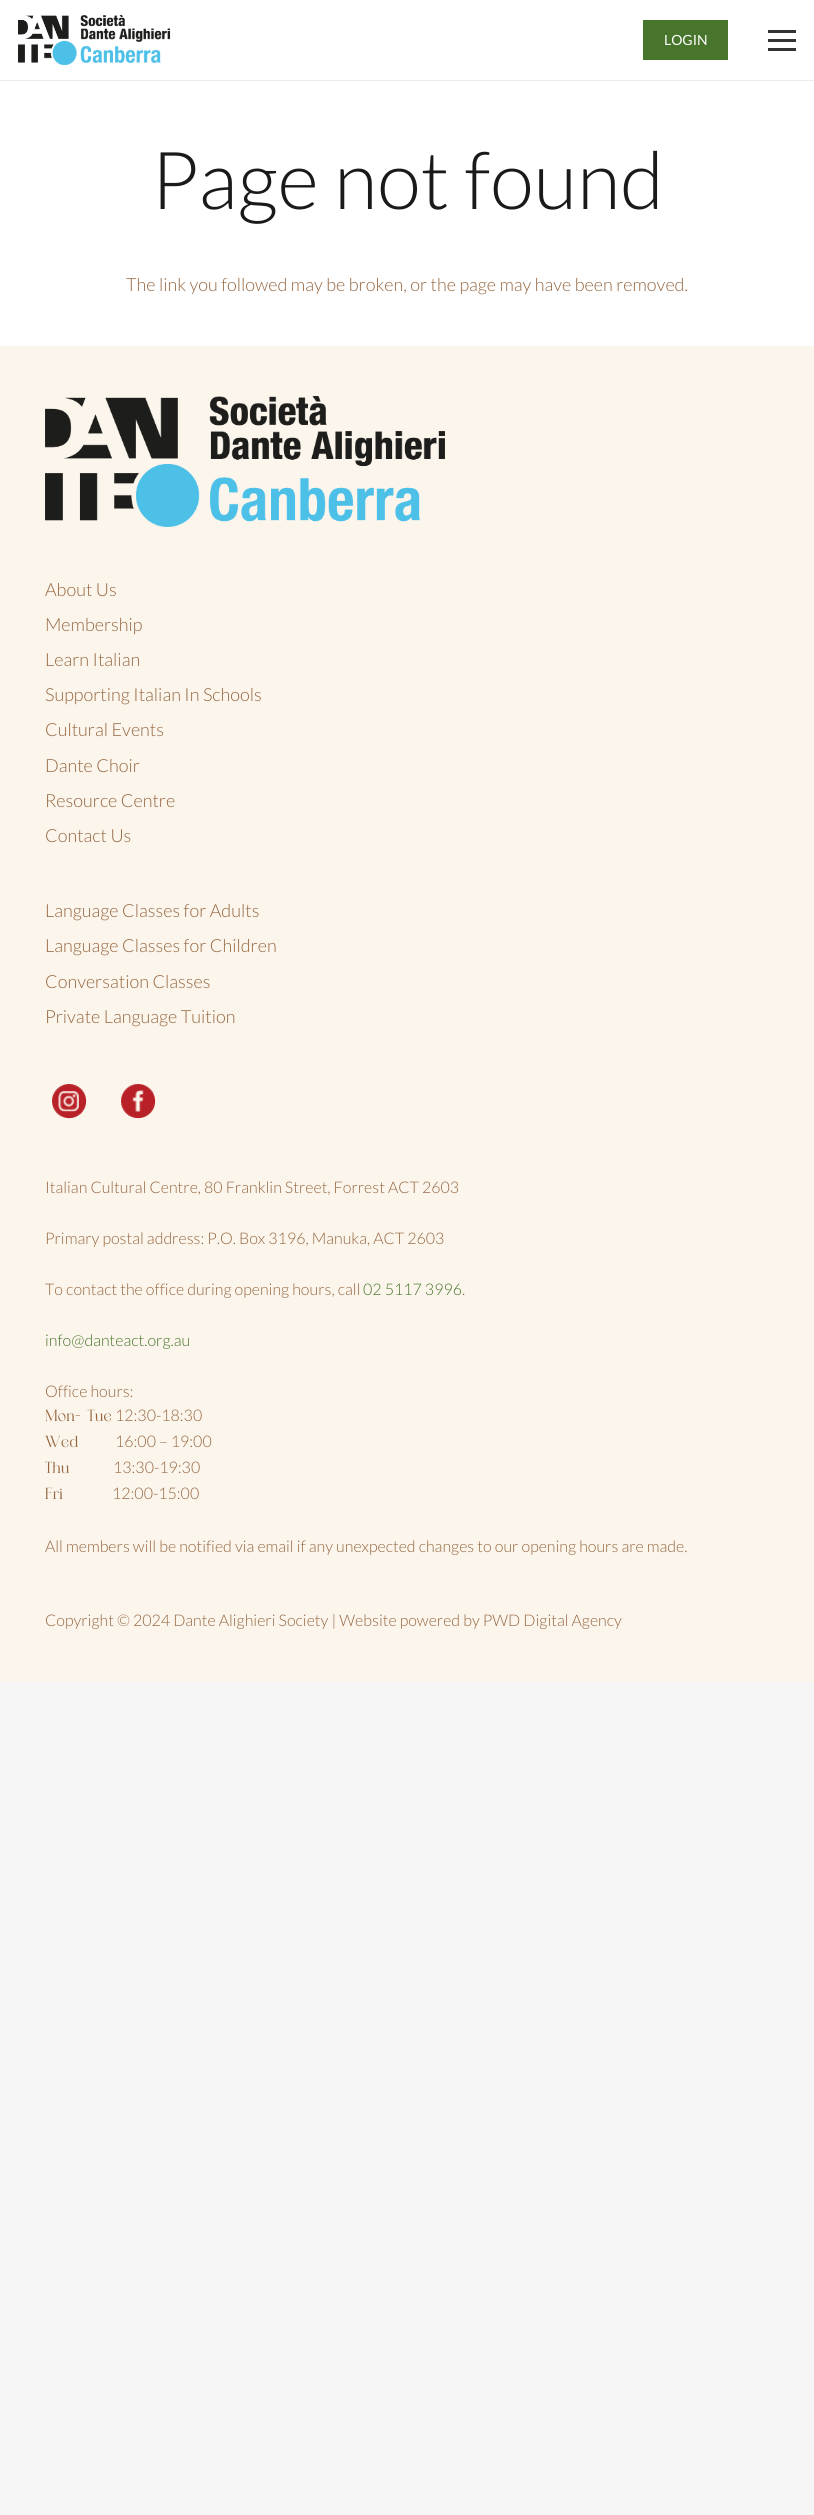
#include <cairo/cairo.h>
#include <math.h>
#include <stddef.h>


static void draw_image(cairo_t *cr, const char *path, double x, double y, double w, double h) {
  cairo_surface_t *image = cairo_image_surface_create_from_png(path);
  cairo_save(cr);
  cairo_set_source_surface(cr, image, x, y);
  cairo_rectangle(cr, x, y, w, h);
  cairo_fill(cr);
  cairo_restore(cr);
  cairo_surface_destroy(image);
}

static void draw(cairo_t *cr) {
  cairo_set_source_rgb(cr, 245 / 255.0, 245 / 255.0, 245 / 255.0);
  cairo_paint(cr);
  cairo_set_source_rgb(cr, 1, 1, 1);
  cairo_rectangle(cr, 0, 0, 814, 346);
  cairo_fill(cr);
  cairo_set_source_rgb(cr, 235 / 255.0, 235 / 255.0, 235 / 255.0);
  cairo_rectangle(cr, 0, 80, 814, 1);
  cairo_fill(cr);
  draw_image(cr, "images/1.png", 18, 15, 153, 50);
  cairo_set_source_rgb(cr, 72 / 255.0, 117 / 255.0, 44 / 255.0);
  cairo_rectangle(cr, 643, 20, 85, 40);
  cairo_fill(cr);
  cairo_set_source_rgb(cr, 51 / 255.0, 51 / 255.0, 51 / 255.0);
  cairo_rectangle(cr, 768, 39, 28, 3);
  cairo_fill(cr);
  cairo_rectangle(cr, 768, 30, 28, 3);
  cairo_fill(cr);
  cairo_rectangle(cr, 768, 48, 28, 3);
  cairo_fill(cr);
  cairo_set_source_rgb(cr, 251 / 255.0, 245 / 255.0, 236 / 255.0);
  cairo_rectangle(cr, 0, 346, 814, 1336);
  cairo_fill(cr);
  draw_image(cr, "images/2.png", 45, 396, 400, 131);
  draw_image(cr, "images/3.png", 52, 1084, 35, 35);
  draw_image(cr, "images/4.png", 121, 1084, 35, 35);
  cairo_select_font_face(cr, "Lato", CAIRO_FONT_SLANT_NORMAL, CAIRO_FONT_WEIGHT_NORMAL);
  cairo_set_font_size(cr, 14);
  cairo_set_source_rgb(cr, 1, 1, 1);
  cairo_move_to(cr, 664, 45);
  cairo_show_text(cr, "LOGIN");
  cairo_select_font_face(cr, "Lato Light", CAIRO_FONT_SLANT_NORMAL, CAIRO_FONT_WEIGHT_NORMAL);
  cairo_set_font_size(cr, 80);
  cairo_set_source_rgb(cr, 26 / 255.0, 26 / 255.0, 26 / 255.0);
  cairo_move_to(cr, 151, 209);
  cairo_show_text(cr, "Page not found");
  cairo_set_font_size(cr, 18);
  cairo_set_source_rgb(cr, 149 / 255.0, 103 / 255.0, 65 / 255.0);
  cairo_move_to(cr, 126, 291);
  cairo_show_text(cr, "The link you followed may be broken, or the page may have been removed.");
  cairo_move_to(cr, 45, 596);
  cairo_show_text(cr, "About Us");
  cairo_move_to(cr, 45, 631);
  cairo_show_text(cr, "Membership");
  cairo_move_to(cr, 45, 666);
  cairo_show_text(cr, "Learn Italian");
  cairo_move_to(cr, 45, 701);
  cairo_show_text(cr, "Supporting Italian In Schools");
  cairo_move_to(cr, 45, 736);
  cairo_show_text(cr, "Cultural Events");
  cairo_move_to(cr, 45, 772);
  cairo_show_text(cr, "Dante Choir");
  cairo_move_to(cr, 45, 807);
  cairo_show_text(cr, "Resource Centre");
  cairo_move_to(cr, 45, 842);
  cairo_show_text(cr, "Contact Us");
  cairo_move_to(cr, 45, 917);
  cairo_show_text(cr, "Language Classes for Adults");
  cairo_move_to(cr, 45, 952);
  cairo_show_text(cr, "Language Classes for Children");
  cairo_move_to(cr, 45, 988);
  cairo_show_text(cr, "Conversation Classes");
  cairo_move_to(cr, 45, 1023);
  cairo_show_text(cr, "Private Language Tuition");
  cairo_set_font_size(cr, 16);
  cairo_move_to(cr, 45, 1193);
  cairo_show_text(cr, "Italian Cultural Centre, 80 Franklin Street, Forrest ACT 2603");
  cairo_move_to(cr, 45, 1244);
  cairo_show_text(cr, "Primary postal address: P.O. Box 3196, Manuka, ACT 2603");
  cairo_move_to(cr, 45, 1295);
  cairo_show_text(cr, "To contact the office during opening hours, call");
  cairo_set_source_rgb(cr, 72 / 255.0, 117 / 255.0, 44 / 255.0);
  cairo_move_to(cr, 363, 1295);
  cairo_show_text(cr, "02 5117 3996");
  cairo_set_source_rgb(cr, 149 / 255.0, 103 / 255.0, 65 / 255.0);
  cairo_move_to(cr, 462, 1295);
  cairo_show_text(cr, ".");
  cairo_set_source_rgb(cr, 72 / 255.0, 117 / 255.0, 44 / 255.0);
  cairo_move_to(cr, 45, 1346);
  cairo_show_text(cr, "info@danteact.org.au");
  cairo_set_source_rgb(cr, 149 / 255.0, 103 / 255.0, 65 / 255.0);
  cairo_move_to(cr, 45, 1397);
  cairo_show_text(cr, "Office hours:");
  cairo_select_font_face(cr, "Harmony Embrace", CAIRO_FONT_SLANT_NORMAL, CAIRO_FONT_WEIGHT_NORMAL);
  cairo_move_to(cr, 45, 1421);
  cairo_show_text(cr, "Mon- Tue");
  cairo_select_font_face(cr, "Lato Light", CAIRO_FONT_SLANT_NORMAL, CAIRO_FONT_WEIGHT_NORMAL);
  cairo_move_to(cr, 115, 1421);
  cairo_show_text(cr, "12:30-18:30");
  cairo_select_font_face(cr, "Harmony Embrace", CAIRO_FONT_SLANT_NORMAL, CAIRO_FONT_WEIGHT_NORMAL);
  cairo_move_to(cr, 45, 1447);
  cairo_show_text(cr, "Wed");
  cairo_select_font_face(cr, "Lato Light", CAIRO_FONT_SLANT_NORMAL, CAIRO_FONT_WEIGHT_NORMAL);
  cairo_move_to(cr, 115, 1447);
  cairo_show_text(cr, "16:00 – 19:00");
  cairo_select_font_face(cr, "Harmony Embrace", CAIRO_FONT_SLANT_NORMAL, CAIRO_FONT_WEIGHT_NORMAL);
  cairo_move_to(cr, 45, 1473);
  cairo_show_text(cr, "Thu");
  cairo_select_font_face(cr, "Lato Light", CAIRO_FONT_SLANT_NORMAL, CAIRO_FONT_WEIGHT_NORMAL);
  cairo_move_to(cr, 113, 1473);
  cairo_show_text(cr, "13:30-19:30");
  cairo_select_font_face(cr, "Harmony Embrace", CAIRO_FONT_SLANT_NORMAL, CAIRO_FONT_WEIGHT_NORMAL);
  cairo_move_to(cr, 45, 1499);
  cairo_show_text(cr, "Fri");
  cairo_select_font_face(cr, "Lato Light", CAIRO_FONT_SLANT_NORMAL, CAIRO_FONT_WEIGHT_NORMAL);
  cairo_move_to(cr, 112, 1499);
  cairo_show_text(cr, "12:00-15:00");
  cairo_move_to(cr, 45, 1552);
  cairo_show_text(cr, "All members will be notified via email if any unexpected changes to our opening hours are made.");
  cairo_move_to(cr, 45, 1626);
  cairo_show_text(cr, "Copyright © 2024 Dante Alighieri Society | Website powered by PWD Digital Agency");
}

int main(void) {
  cairo_surface_t *surface = cairo_image_surface_create(CAIRO_FORMAT_RGB24, 814, 2515);
  cairo_t *cr = cairo_create(surface);
  cairo_font_options_t *options = cairo_font_options_create();
  cairo_font_options_set_hint_metrics(options, CAIRO_HINT_METRICS_OFF);
  cairo_font_options_set_hint_style(options, CAIRO_HINT_STYLE_NONE);
  cairo_set_font_options(cr, options);
  cairo_set_miter_limit(cr, 4);
  draw(cr);
  cairo_surface_write_to_png(surface, "out.png");
  cairo_font_options_destroy(options);
  cairo_destroy(cr);
  cairo_surface_destroy(surface);
  return 0;
}
